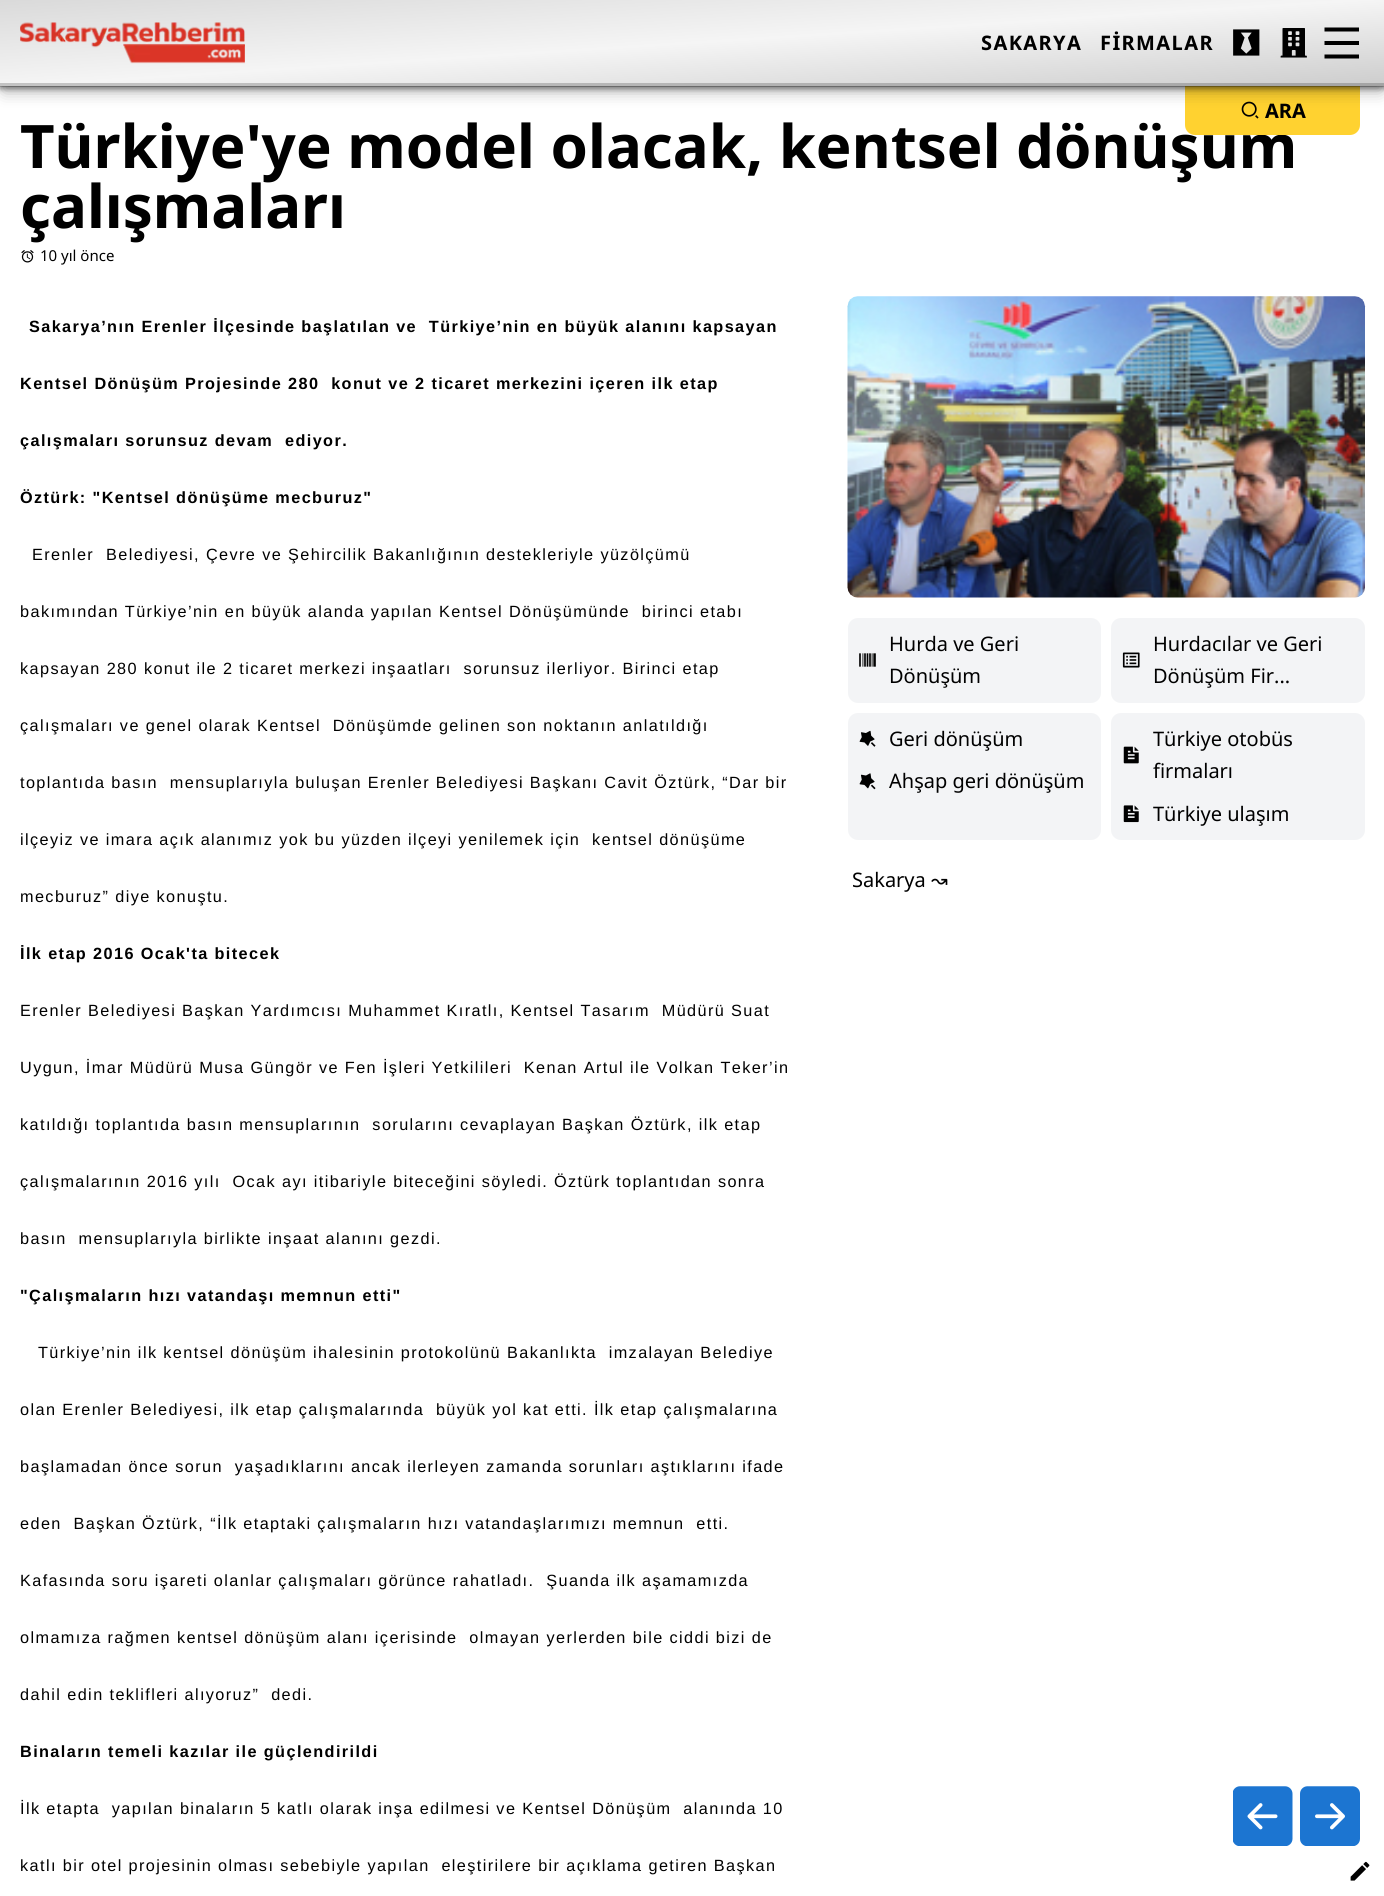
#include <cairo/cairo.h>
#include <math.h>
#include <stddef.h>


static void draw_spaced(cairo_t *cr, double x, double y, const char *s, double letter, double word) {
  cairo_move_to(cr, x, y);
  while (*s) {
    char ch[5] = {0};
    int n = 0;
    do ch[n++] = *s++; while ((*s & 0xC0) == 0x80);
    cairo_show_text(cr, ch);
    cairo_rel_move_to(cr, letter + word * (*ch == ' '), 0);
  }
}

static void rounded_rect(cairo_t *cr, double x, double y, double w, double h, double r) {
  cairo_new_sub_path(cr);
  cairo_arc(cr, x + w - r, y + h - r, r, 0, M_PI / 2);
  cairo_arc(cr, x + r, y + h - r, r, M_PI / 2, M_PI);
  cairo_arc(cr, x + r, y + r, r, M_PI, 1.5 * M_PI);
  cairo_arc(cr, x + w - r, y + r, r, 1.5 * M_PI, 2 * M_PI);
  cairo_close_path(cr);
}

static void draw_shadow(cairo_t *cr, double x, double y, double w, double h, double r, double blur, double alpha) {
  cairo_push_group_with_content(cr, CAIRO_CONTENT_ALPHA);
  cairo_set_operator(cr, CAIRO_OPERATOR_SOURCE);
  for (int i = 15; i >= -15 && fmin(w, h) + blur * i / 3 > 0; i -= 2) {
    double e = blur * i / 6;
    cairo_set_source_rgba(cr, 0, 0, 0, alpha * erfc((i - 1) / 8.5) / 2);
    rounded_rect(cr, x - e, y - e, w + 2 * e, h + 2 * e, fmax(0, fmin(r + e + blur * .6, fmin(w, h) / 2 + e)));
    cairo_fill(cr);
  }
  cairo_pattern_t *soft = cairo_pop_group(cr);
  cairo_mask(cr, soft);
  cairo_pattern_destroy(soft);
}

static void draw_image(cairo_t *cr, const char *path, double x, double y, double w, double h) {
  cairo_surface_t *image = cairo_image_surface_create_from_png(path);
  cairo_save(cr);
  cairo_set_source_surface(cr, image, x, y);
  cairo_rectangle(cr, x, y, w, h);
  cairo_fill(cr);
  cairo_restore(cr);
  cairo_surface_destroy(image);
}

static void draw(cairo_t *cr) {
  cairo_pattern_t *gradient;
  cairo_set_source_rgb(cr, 1, 1, 1);
  cairo_paint(cr);
  draw_image(cr, "images/5.png", 21, 250, 13, 13);
  draw_image(cr, "images/6.png", 847, 296, 519, 302);
  cairo_set_source_rgb(cr, 243 / 255.0, 244 / 255.0, 246 / 255.0);
  rounded_rect(cr, 848, 618, 253, 85, 10);
  cairo_fill(cr);
  draw_image(cr, "images/7.png", 859, 653, 17, 14);
  rounded_rect(cr, 1111, 618, 254, 85, 10);
  cairo_fill(cr);
  draw_image(cr, "images/8.png", 1122, 652, 18, 16);
  rounded_rect(cr, 848, 713, 253, 127, 10);
  cairo_fill(cr);
  draw_image(cr, "images/9.png", 859, 730, 17, 17);
  draw_image(cr, "images/10.png", 859, 773, 17, 17);
  rounded_rect(cr, 1111, 713, 254, 127, 10);
  cairo_fill(cr);
  draw_image(cr, "images/11.png", 1123, 746, 16, 18);
  draw_image(cr, "images/12.png", 1123, 805, 16, 18);
  draw_image(cr, "images/13.png", 1233, 1786, 60, 60);
  draw_image(cr, "images/14.png", 1300, 1786, 60, 60);
  draw_image(cr, "images/15.png", 1350, 1861, 20, 20);
  cairo_select_font_face(cr, "Noto Sans", CAIRO_FONT_SLANT_NORMAL, CAIRO_FONT_WEIGHT_BOLD);
  cairo_set_font_size(cr, 60);
  cairo_set_source_rgb(cr, 0, 0, 0);
  cairo_move_to(cr, 20, 168);
  cairo_show_text(cr, "Türkiye'ye model olacak, kentsel dönüşüm");
  cairo_set_source_rgb(cr, 1, 210 / 255.0, 48 / 255.0);
  cairo_new_path(cr);
  cairo_move_to(cr, 1185, 85);
  cairo_line_to(cr, 1360, 85);
  cairo_line_to(cr, 1360, 125);
  cairo_curve_to(cr, 1360, 130.5, 1355.5, 135, 1350, 135);
  cairo_line_to(cr, 1195, 135);
  cairo_curve_to(cr, 1189.5, 135, 1185, 130.5, 1185, 125);
  cairo_close_path(cr);
  cairo_fill(cr);
  cairo_set_source_rgb(cr, 0, 0, 0);
  draw_shadow(cr, 0, 3, 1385, 86, 0, 2.5, 0.4);
  draw_image(cr, "images/4.png", 1241, 101, 18, 18);
  draw_shadow(cr, 4, 13, 1377, 78, 0, 8, 0.3);
  gradient = cairo_pattern_create_linear(687, -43, 698, 129);
  cairo_pattern_add_color_stop_rgba(gradient, 0, 218 / 255.0, 218 / 255.0, 218 / 255.0, 1);
  cairo_pattern_add_color_stop_rgba(gradient, 0.5, 245 / 255.0, 245 / 255.0, 245 / 255.0, 1);
  cairo_pattern_add_color_stop_rgba(gradient, 1, 205 / 255.0, 205 / 255.0, 205 / 255.0, 1);
  cairo_set_source(cr, gradient);
  cairo_pattern_destroy(gradient);
  cairo_rectangle(cr, 0, 0, 1384, 86);
  cairo_fill(cr);
  draw_image(cr, "images/1.png", 20, 22, 225, 42);
  cairo_set_source_rgb(cr, 0, 0, 0);
  cairo_new_path(cr);
  cairo_move_to(cr, 1324.5, 27.5);
  cairo_line_to(cr, 1359, 27.5);
  cairo_line_to(cr, 1359, 31.5);
  cairo_line_to(cr, 1324.5, 31.5);
  cairo_close_path(cr);
  cairo_move_to(cr, 1324.5, 41);
  cairo_line_to(cr, 1359, 41);
  cairo_line_to(cr, 1359, 45);
  cairo_line_to(cr, 1324.5, 45);
  cairo_close_path(cr);
  cairo_move_to(cr, 1324.5, 54.5);
  cairo_line_to(cr, 1359, 54.5);
  cairo_line_to(cr, 1359, 58.5);
  cairo_line_to(cr, 1324.5, 58.5);
  cairo_close_path(cr);
  cairo_fill(cr);
  draw_image(cr, "images/3.png", 1280, 28, 27, 30);
  draw_image(cr, "images/2.png", 1233, 29, 27, 27);
  cairo_set_font_size(cr, 20);
  draw_spaced(cr, 1100, 50, "FİRMALAR", 1.4, 0);
  draw_spaced(cr, 981, 50, "SAKARYA", 1.4, 0);
  cairo_set_source_rgba(cr, 0, 0, 0, 0.2);
  cairo_rectangle(cr, 0, 83, 1384, 4);
  cairo_fill(cr);
  cairo_set_source_rgb(cr, 0, 0, 0);
  cairo_move_to(cr, 1265, 118);
  cairo_show_text(cr, "ARA");
  cairo_set_font_size(cr, 60);
  cairo_move_to(cr, 20, 228);
  cairo_show_text(cr, "çalışmaları");
  cairo_select_font_face(cr, "Noto Sans", CAIRO_FONT_SLANT_NORMAL, CAIRO_FONT_WEIGHT_NORMAL);
  cairo_set_font_size(cr, 15);
  cairo_move_to(cr, 40, 261);
  cairo_show_text(cr, "10 yıl önce");
  cairo_select_font_face(cr, "Liberation Sans", CAIRO_FONT_SLANT_NORMAL, CAIRO_FONT_WEIGHT_BOLD);
  cairo_set_font_size(cr, 16.25);
  draw_spaced(cr, 29, 332, "Sakarya’nın Erenler İlçesinde başlatılan ve  Türkiye’nin en büyük alanını kapsayan", 1.4, 0);
  draw_spaced(cr, 20, 389, "Kentsel Dönüşüm Projesinde 280  konut ve 2 ticaret merkezini içeren ilk etap", 1.4, 0);
  draw_spaced(cr, 20, 446, "çalışmaları sorunsuz devam  ediyor.", 1.4, 0);
  draw_spaced(cr, 20, 503, "Öztürk: \"Kentsel dönüşüme mecburuz\"", 1.4, 0);
  cairo_select_font_face(cr, "Liberation Sans", CAIRO_FONT_SLANT_NORMAL, CAIRO_FONT_WEIGHT_NORMAL);
  draw_spaced(cr, 32, 560, "Erenler  Belediyesi, Çevre ve Şehircilik Bakanlığının destekleriyle yüzölçümü", 1.4, 0);
  draw_spaced(cr, 20, 617, "bakımından Türkiye’nin en büyük alanda yapılan Kentsel Dönüşümünde  birinci etabı", 1.4, 0);
  draw_spaced(cr, 20, 674, "kapsayan 280 konut ile 2 ticaret merkezi inşaatları  sorunsuz ilerliyor. Birinci etap", 1.4, 0);
  draw_spaced(cr, 20, 731, "çalışmaları ve genel olarak Kentsel  Dönüşümde gelinen son noktanın anlatıldığı", 1.4, 0);
  draw_spaced(cr, 20, 788, "toplantıda basın  mensuplarıyla buluşan Erenler Belediyesi Başkanı Cavit Öztürk, “Dar bir", 1.4, 0);
  draw_spaced(cr, 20, 845, "ilçeyiz ve imara açık alanımız yok bu yüzden ilçeyi yenilemek için  kentsel dönüşüme", 1.4, 0);
  draw_spaced(cr, 20, 902, "mecburuz” diye konuştu.", 1.4, 0);
  cairo_select_font_face(cr, "Liberation Sans", CAIRO_FONT_SLANT_NORMAL, CAIRO_FONT_WEIGHT_BOLD);
  draw_spaced(cr, 20, 959, "İlk etap 2016 Ocak'ta bitecek", 1.4, 0);
  cairo_select_font_face(cr, "Liberation Sans", CAIRO_FONT_SLANT_NORMAL, CAIRO_FONT_WEIGHT_NORMAL);
  draw_spaced(cr, 20, 1016, "Erenler Belediyesi Başkan Yardımcısı Muhammet Kıratlı, Kentsel Tasarım  Müdürü Suat", 1.4, 0);
  draw_spaced(cr, 20, 1073, "Uygun, İmar Müdürü Musa Güngör ve Fen İşleri Yetkilileri  Kenan Artul ile Volkan Teker’in", 1.4, 0);
  draw_spaced(cr, 20, 1130, "katıldığı toplantıda basın mensuplarının  sorularını cevaplayan Başkan Öztürk, ilk etap", 1.4, 0);
  draw_spaced(cr, 20, 1187, "çalışmalarının 2016 yılı  Ocak ayı itibariyle biteceğini söyledi. Öztürk toplantıdan sonra", 1.4, 0);
  draw_spaced(cr, 20, 1244, "basın  mensuplarıyla birlikte inşaat alanını gezdi.", 1.4, 0);
  cairo_select_font_face(cr, "Liberation Sans", CAIRO_FONT_SLANT_NORMAL, CAIRO_FONT_WEIGHT_BOLD);
  draw_spaced(cr, 20, 1301, "\"Çalışmaların hızı vatandaşı memnun etti\"", 1.4, 0);
  cairo_select_font_face(cr, "Liberation Sans", CAIRO_FONT_SLANT_NORMAL, CAIRO_FONT_WEIGHT_NORMAL);
  draw_spaced(cr, 38, 1358, "Türkiye’nin ilk kentsel dönüşüm ihalesinin protokolünü Bakanlıkta  imzalayan Belediye", 1.4, 0);
  draw_spaced(cr, 20, 1415, "olan Erenler Belediyesi, ilk etap çalışmalarında  büyük yol kat etti. İlk etap çalışmalarına", 1.4, 0);
  draw_spaced(cr, 20, 1472, "başlamadan önce sorun  yaşadıklarını ancak ilerleyen zamanda sorunları aştıklarını ifade", 1.4, 0);
  draw_spaced(cr, 20, 1529, "eden  Başkan Öztürk, “İlk etaptaki çalışmaların hızı vatandaşlarımızı memnun  etti.", 1.4, 0);
  draw_spaced(cr, 20, 1586, "Kafasında soru işareti olanlar çalışmaları görünce rahatladı.  Şuanda ilk aşamamızda", 1.4, 0);
  draw_spaced(cr, 20, 1643, "olmamıza rağmen kentsel dönüşüm alanı içerisinde  olmayan yerlerden bile ciddi bizi de", 1.4, 0);
  draw_spaced(cr, 20, 1700, "dahil edin teklifleri alıyoruz”  dedi.", 1.4, 0);
  cairo_select_font_face(cr, "Liberation Sans", CAIRO_FONT_SLANT_NORMAL, CAIRO_FONT_WEIGHT_BOLD);
  draw_spaced(cr, 20, 1757, "Binaların temeli kazılar ile güçlendirildi", 1.4, 0);
  cairo_select_font_face(cr, "Liberation Sans", CAIRO_FONT_SLANT_NORMAL, CAIRO_FONT_WEIGHT_NORMAL);
  draw_spaced(cr, 20, 1814, "İlk etapta  yapılan binaların 5 katlı olarak inşa edilmesi ve Kentsel Dönüşüm  alanında 10", 1.4, 0);
  draw_spaced(cr, 20, 1871, "katlı bir otel projesinin olması sebebiyle yapılan  eleştirilere bir açıklama getiren Başkan", 1.4, 0);
  cairo_select_font_face(cr, "Noto Sans", CAIRO_FONT_SLANT_NORMAL, CAIRO_FONT_WEIGHT_NORMAL);
  cairo_set_font_size(cr, 20);
  cairo_move_to(cr, 889, 651);
  cairo_show_text(cr, "Hurda ve Geri");
  cairo_move_to(cr, 889, 683);
  cairo_show_text(cr, "Dönüşüm");
  cairo_move_to(cr, 1153, 651);
  cairo_show_text(cr, "Hurdacılar ve Geri");
  cairo_move_to(cr, 1153, 683);
  cairo_show_text(cr, "Dönüşüm Fir...");
  cairo_move_to(cr, 889, 746);
  cairo_show_text(cr, "Geri dönüşüm");
  cairo_move_to(cr, 889, 788);
  cairo_show_text(cr, "Ahşap geri dönüşüm");
  cairo_move_to(cr, 1153, 746);
  cairo_show_text(cr, "Türkiye otobüs");
  cairo_move_to(cr, 1153, 778);
  cairo_show_text(cr, "firmaları");
  cairo_move_to(cr, 1153, 821);
  cairo_show_text(cr, "Türkiye ulaşım");
  cairo_move_to(cr, 852, 887);
  cairo_show_text(cr, "Sakarya");
  cairo_select_font_face(cr, "DejaVu Sans", CAIRO_FONT_SLANT_NORMAL, CAIRO_FONT_WEIGHT_NORMAL);
  cairo_move_to(cr, 931, 887);
  cairo_show_text(cr, "↝");
}

int main(void) {
  cairo_surface_t *surface = cairo_image_surface_create(CAIRO_FORMAT_RGB24, 1384, 1896);
  cairo_t *cr = cairo_create(surface);
  cairo_font_options_t *options = cairo_font_options_create();
  cairo_font_options_set_hint_metrics(options, CAIRO_HINT_METRICS_OFF);
  cairo_font_options_set_hint_style(options, CAIRO_HINT_STYLE_NONE);
  cairo_set_font_options(cr, options);
  cairo_set_miter_limit(cr, 4);
  draw(cr);
  cairo_surface_write_to_png(surface, "out.png");
  cairo_font_options_destroy(options);
  cairo_destroy(cr);
  cairo_surface_destroy(surface);
  return 0;
}
